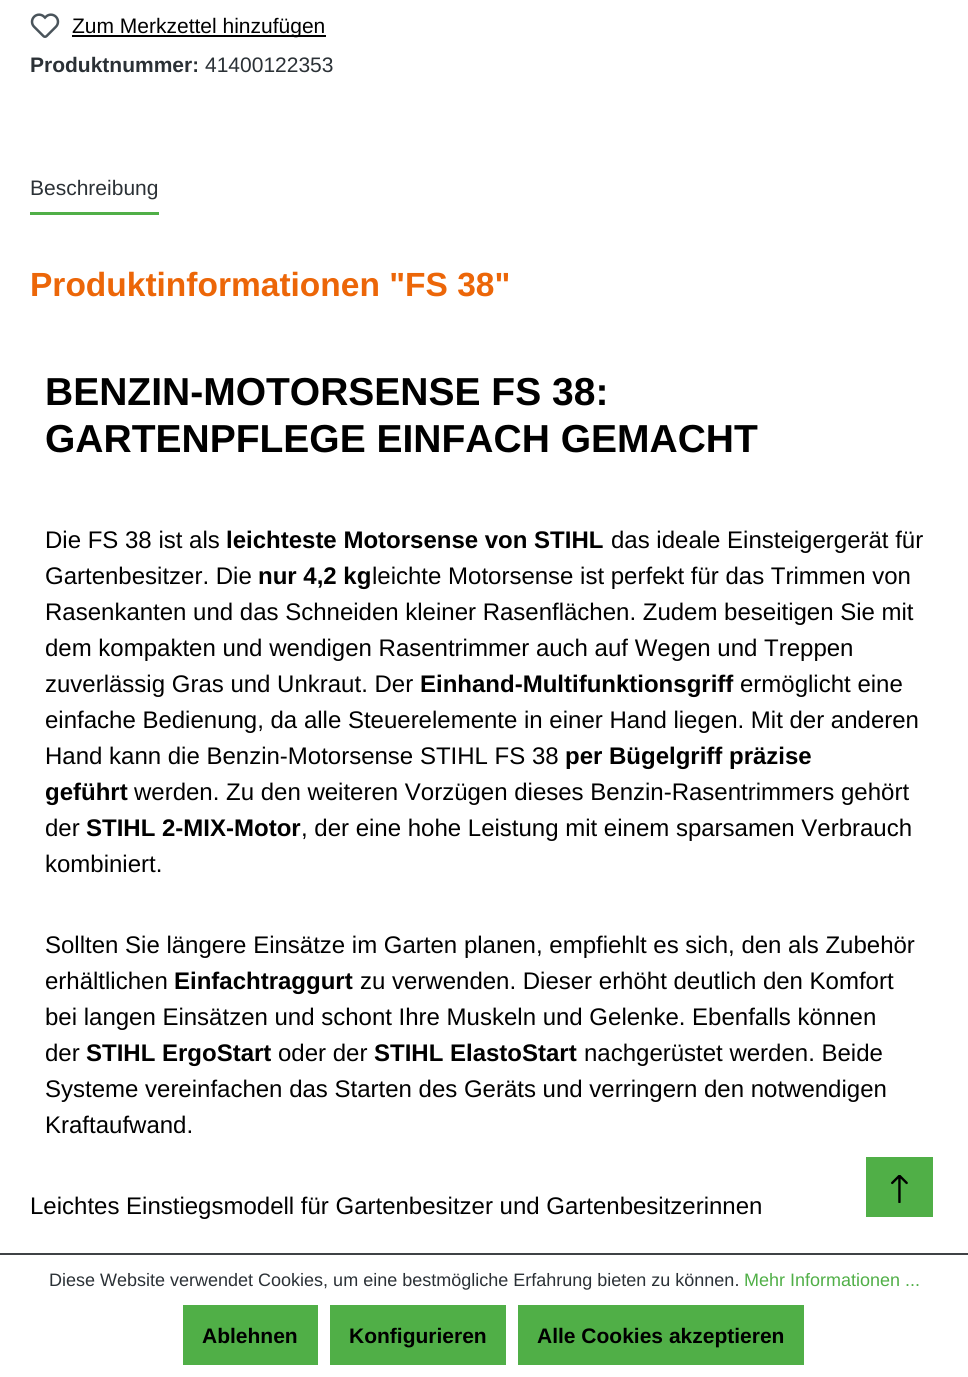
#include <cairo/cairo.h>
#include <math.h>
#include <stddef.h>


static void draw_image(cairo_t *cr, const char *path, double x, double y, double w, double h) {
  cairo_surface_t *image = cairo_image_surface_create_from_png(path);
  cairo_save(cr);
  cairo_set_source_surface(cr, image, x, y);
  cairo_rectangle(cr, x, y, w, h);
  cairo_fill(cr);
  cairo_restore(cr);
  cairo_surface_destroy(image);
}

static void draw(cairo_t *cr) {
  cairo_set_source_rgb(cr, 1, 1, 1);
  cairo_paint(cr);
  draw_image(cr, "images/1.png", 30, 13, 30, 25);
  cairo_set_source_rgb(cr, 0, 0, 0);
  cairo_rectangle(cr, 72, 35, 254, 2);
  cairo_fill(cr);
  cairo_set_source_rgb(cr, 80 / 255.0, 175 / 255.0, 71 / 255.0);
  cairo_rectangle(cr, 30, 212, 129, 3);
  cairo_fill(cr);
  cairo_rectangle(cr, 866, 1157, 67, 60);
  cairo_fill(cr);
  draw_image(cr, "images/2.png", 891, 1175, 17, 28);
  cairo_set_source_rgb(cr, 63 / 255.0, 66 / 255.0, 69 / 255.0);
  cairo_rectangle(cr, 0, 1253, 968, 2);
  cairo_fill(cr);
  cairo_set_source_rgb(cr, 80 / 255.0, 175 / 255.0, 71 / 255.0);
  cairo_rectangle(cr, 183, 1305, 135, 60);
  cairo_fill(cr);
  cairo_rectangle(cr, 330, 1305, 176, 60);
  cairo_fill(cr);
  cairo_rectangle(cr, 518, 1305, 286, 60);
  cairo_fill(cr);
  cairo_select_font_face(cr, "Liberation Sans", CAIRO_FONT_SLANT_NORMAL, CAIRO_FONT_WEIGHT_NORMAL);
  cairo_set_font_size(cr, 21);
  cairo_set_source_rgb(cr, 0, 0, 0);
  cairo_move_to(cr, 72, 33);
  cairo_show_text(cr, "Zum Merkzettel hinzufügen");
  cairo_select_font_face(cr, "Liberation Sans", CAIRO_FONT_SLANT_NORMAL, CAIRO_FONT_WEIGHT_BOLD);
  cairo_set_source_rgb(cr, 43 / 255.0, 49 / 255.0, 54 / 255.0);
  cairo_move_to(cr, 30, 72);
  cairo_show_text(cr, "Produktnummer:");
  cairo_select_font_face(cr, "Liberation Sans", CAIRO_FONT_SLANT_NORMAL, CAIRO_FONT_WEIGHT_NORMAL);
  cairo_move_to(cr, 205, 72);
  cairo_show_text(cr, "41400122353");
  cairo_move_to(cr, 30, 195);
  cairo_show_text(cr, "Beschreibung");
  cairo_select_font_face(cr, "Liberation Sans", CAIRO_FONT_SLANT_NORMAL, CAIRO_FONT_WEIGHT_BOLD);
  cairo_set_font_size(cr, 33.5);
  cairo_set_source_rgb(cr, 236 / 255.0, 102 / 255.0, 8 / 255.0);
  cairo_move_to(cr, 30, 296);
  cairo_show_text(cr, "Produktinformationen \"FS 38\"");
  cairo_set_font_size(cr, 39);
  cairo_set_source_rgb(cr, 0, 0, 0);
  cairo_move_to(cr, 45, 405);
  cairo_show_text(cr, "BENZIN-MOTORSENSE FS 38:");
  cairo_move_to(cr, 45, 452);
  cairo_show_text(cr, "GARTENPFLEGE EINFACH GEMACHT");
  cairo_select_font_face(cr, "Liberation Sans", CAIRO_FONT_SLANT_NORMAL, CAIRO_FONT_WEIGHT_NORMAL);
  cairo_set_font_size(cr, 24);
  cairo_move_to(cr, 45, 548);
  cairo_show_text(cr, "Die FS 38 ist als");
  cairo_select_font_face(cr, "Liberation Sans", CAIRO_FONT_SLANT_NORMAL, CAIRO_FONT_WEIGHT_BOLD);
  cairo_move_to(cr, 226, 548);
  cairo_show_text(cr, "leichteste Motorsense von STIHL");
  cairo_select_font_face(cr, "Liberation Sans", CAIRO_FONT_SLANT_NORMAL, CAIRO_FONT_WEIGHT_NORMAL);
  cairo_move_to(cr, 611, 548);
  cairo_show_text(cr, "das ideale Einsteigergerät für");
  cairo_move_to(cr, 45, 584);
  cairo_show_text(cr, "Gartenbesitzer. Die");
  cairo_select_font_face(cr, "Liberation Sans", CAIRO_FONT_SLANT_NORMAL, CAIRO_FONT_WEIGHT_BOLD);
  cairo_move_to(cr, 258, 584);
  cairo_show_text(cr, "nur 4,2 kg");
  cairo_select_font_face(cr, "Liberation Sans", CAIRO_FONT_SLANT_NORMAL, CAIRO_FONT_WEIGHT_NORMAL);
  cairo_move_to(cr, 372, 584);
  cairo_show_text(cr, "leichte Motorsense ist perfekt für das Trimmen von");
  cairo_move_to(cr, 45, 620);
  cairo_show_text(cr, "Rasenkanten und das Schneiden kleiner Rasenflächen. Zudem beseitigen Sie mit");
  cairo_move_to(cr, 45, 656);
  cairo_show_text(cr, "dem kompakten und wendigen Rasentrimmer auch auf Wegen und Treppen");
  cairo_move_to(cr, 45, 692);
  cairo_show_text(cr, "zuverlässig Gras und Unkraut. Der");
  cairo_select_font_face(cr, "Liberation Sans", CAIRO_FONT_SLANT_NORMAL, CAIRO_FONT_WEIGHT_BOLD);
  cairo_move_to(cr, 420, 692);
  cairo_show_text(cr, "Einhand-Multifunktionsgriff");
  cairo_select_font_face(cr, "Liberation Sans", CAIRO_FONT_SLANT_NORMAL, CAIRO_FONT_WEIGHT_NORMAL);
  cairo_move_to(cr, 740, 692);
  cairo_show_text(cr, "ermöglicht eine");
  cairo_move_to(cr, 45, 728);
  cairo_show_text(cr, "einfache Bedienung, da alle Steuerelemente in einer Hand liegen. Mit der anderen");
  cairo_move_to(cr, 45, 764);
  cairo_show_text(cr, "Hand kann die Benzin-Motorsense STIHL FS 38");
  cairo_select_font_face(cr, "Liberation Sans", CAIRO_FONT_SLANT_NORMAL, CAIRO_FONT_WEIGHT_BOLD);
  cairo_move_to(cr, 565, 764);
  cairo_show_text(cr, "per Bügelgriff präzise");
  cairo_move_to(cr, 45, 800);
  cairo_show_text(cr, "geführt");
  cairo_select_font_face(cr, "Liberation Sans", CAIRO_FONT_SLANT_NORMAL, CAIRO_FONT_WEIGHT_NORMAL);
  cairo_move_to(cr, 134, 800);
  cairo_show_text(cr, "werden. Zu den weiteren Vorzügen dieses Benzin-Rasentrimmers gehört");
  cairo_move_to(cr, 45, 836);
  cairo_show_text(cr, "der");
  cairo_select_font_face(cr, "Liberation Sans", CAIRO_FONT_SLANT_NORMAL, CAIRO_FONT_WEIGHT_BOLD);
  cairo_move_to(cr, 86, 836);
  cairo_show_text(cr, "STIHL 2-MIX-Motor");
  cairo_select_font_face(cr, "Liberation Sans", CAIRO_FONT_SLANT_NORMAL, CAIRO_FONT_WEIGHT_NORMAL);
  cairo_move_to(cr, 301, 836);
  cairo_show_text(cr, ", der eine hohe Leistung mit einem sparsamen Verbrauch");
  cairo_move_to(cr, 45, 872);
  cairo_show_text(cr, "kombiniert.");
  cairo_move_to(cr, 45, 953);
  cairo_show_text(cr, "Sollten Sie längere Einsätze im Garten planen, empfiehlt es sich, den als Zubehör");
  cairo_move_to(cr, 45, 989);
  cairo_show_text(cr, "erhältlichen");
  cairo_select_font_face(cr, "Liberation Sans", CAIRO_FONT_SLANT_NORMAL, CAIRO_FONT_WEIGHT_BOLD);
  cairo_move_to(cr, 174, 989);
  cairo_show_text(cr, "Einfachtraggurt");
  cairo_select_font_face(cr, "Liberation Sans", CAIRO_FONT_SLANT_NORMAL, CAIRO_FONT_WEIGHT_NORMAL);
  cairo_move_to(cr, 360, 989);
  cairo_show_text(cr, "zu verwenden. Dieser erhöht deutlich den Komfort");
  cairo_move_to(cr, 45, 1025);
  cairo_show_text(cr, "bei langen Einsätzen und schont Ihre Muskeln und Gelenke. Ebenfalls können");
  cairo_move_to(cr, 45, 1061);
  cairo_show_text(cr, "der");
  cairo_select_font_face(cr, "Liberation Sans", CAIRO_FONT_SLANT_NORMAL, CAIRO_FONT_WEIGHT_BOLD);
  cairo_move_to(cr, 86, 1061);
  cairo_show_text(cr, "STIHL ErgoStart");
  cairo_select_font_face(cr, "Liberation Sans", CAIRO_FONT_SLANT_NORMAL, CAIRO_FONT_WEIGHT_NORMAL);
  cairo_move_to(cr, 278, 1061);
  cairo_show_text(cr, "oder der");
  cairo_select_font_face(cr, "Liberation Sans", CAIRO_FONT_SLANT_NORMAL, CAIRO_FONT_WEIGHT_BOLD);
  cairo_move_to(cr, 374, 1061);
  cairo_show_text(cr, "STIHL ElastoStart");
  cairo_select_font_face(cr, "Liberation Sans", CAIRO_FONT_SLANT_NORMAL, CAIRO_FONT_WEIGHT_NORMAL);
  cairo_move_to(cr, 584, 1061);
  cairo_show_text(cr, "nachgerüstet werden. Beide");
  cairo_move_to(cr, 45, 1097);
  cairo_show_text(cr, "Systeme vereinfachen das Starten des Geräts und verringern den notwendigen");
  cairo_move_to(cr, 45, 1133);
  cairo_show_text(cr, "Kraftaufwand.");
  cairo_move_to(cr, 30, 1214);
  cairo_show_text(cr, "Leichtes Einstiegsmodell für Gartenbesitzer und Gartenbesitzerinnen");
  cairo_set_font_size(cr, 18);
  cairo_set_source_rgb(cr, 43 / 255.0, 49 / 255.0, 54 / 255.0);
  cairo_move_to(cr, 49, 1286);
  cairo_show_text(cr, "Diese Website verwendet Cookies, um eine bestmögliche Erfahrung bieten zu können.");
  cairo_set_source_rgb(cr, 80 / 255.0, 175 / 255.0, 71 / 255.0);
  cairo_move_to(cr, 744, 1286);
  cairo_show_text(cr, "Mehr Informationen ...");
  cairo_select_font_face(cr, "Liberation Sans", CAIRO_FONT_SLANT_NORMAL, CAIRO_FONT_WEIGHT_BOLD);
  cairo_set_font_size(cr, 21);
  cairo_set_source_rgb(cr, 0, 0, 0);
  cairo_move_to(cr, 202, 1343);
  cairo_show_text(cr, "Ablehnen");
  cairo_move_to(cr, 349, 1343);
  cairo_show_text(cr, "Konfigurieren");
  cairo_move_to(cr, 537, 1343);
  cairo_show_text(cr, "Alle Cookies akzeptieren");
}

int main(void) {
  cairo_surface_t *surface = cairo_image_surface_create(CAIRO_FORMAT_RGB24, 968, 1377);
  cairo_t *cr = cairo_create(surface);
  cairo_font_options_t *options = cairo_font_options_create();
  cairo_font_options_set_hint_metrics(options, CAIRO_HINT_METRICS_OFF);
  cairo_font_options_set_hint_style(options, CAIRO_HINT_STYLE_NONE);
  cairo_set_font_options(cr, options);
  cairo_set_miter_limit(cr, 4);
  draw(cr);
  cairo_surface_write_to_png(surface, "out.png");
  cairo_font_options_destroy(options);
  cairo_destroy(cr);
  cairo_surface_destroy(surface);
  return 0;
}
